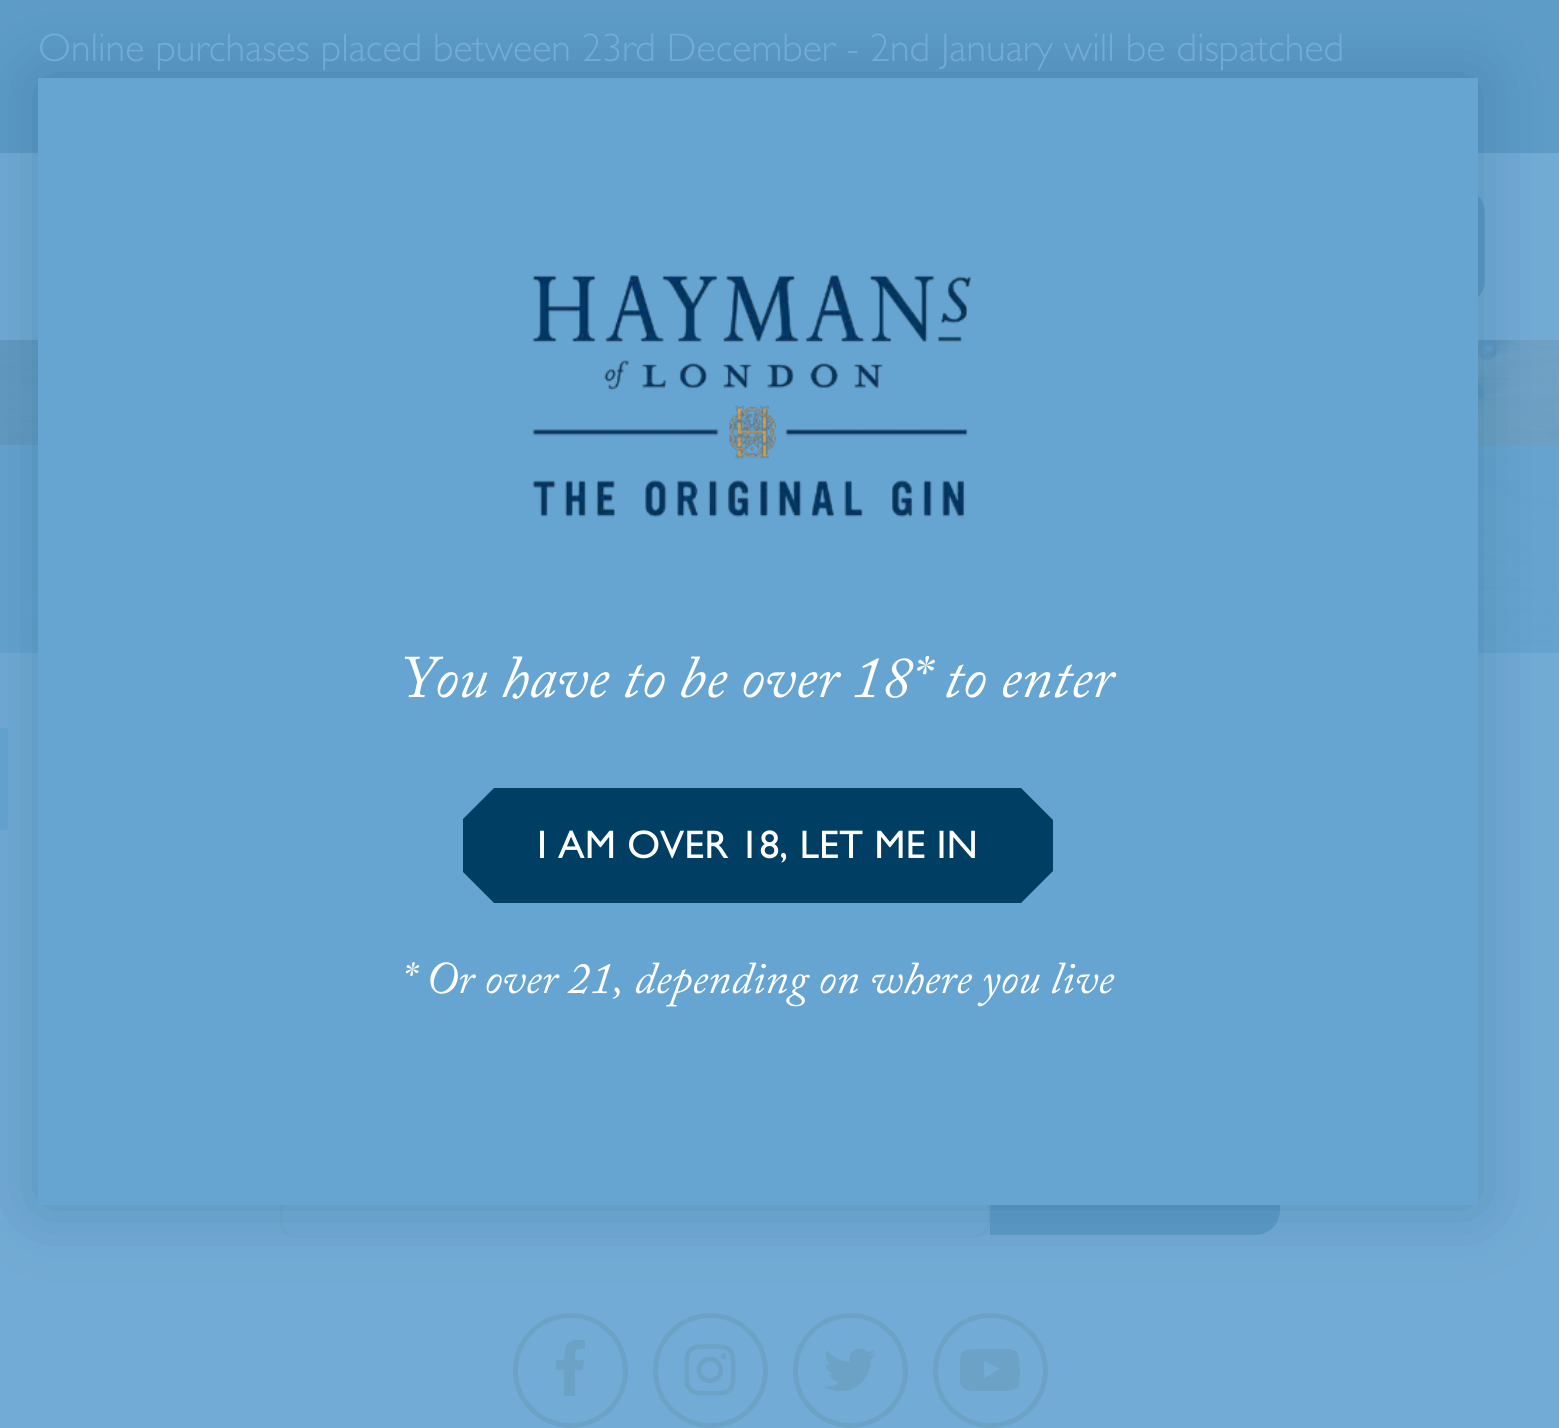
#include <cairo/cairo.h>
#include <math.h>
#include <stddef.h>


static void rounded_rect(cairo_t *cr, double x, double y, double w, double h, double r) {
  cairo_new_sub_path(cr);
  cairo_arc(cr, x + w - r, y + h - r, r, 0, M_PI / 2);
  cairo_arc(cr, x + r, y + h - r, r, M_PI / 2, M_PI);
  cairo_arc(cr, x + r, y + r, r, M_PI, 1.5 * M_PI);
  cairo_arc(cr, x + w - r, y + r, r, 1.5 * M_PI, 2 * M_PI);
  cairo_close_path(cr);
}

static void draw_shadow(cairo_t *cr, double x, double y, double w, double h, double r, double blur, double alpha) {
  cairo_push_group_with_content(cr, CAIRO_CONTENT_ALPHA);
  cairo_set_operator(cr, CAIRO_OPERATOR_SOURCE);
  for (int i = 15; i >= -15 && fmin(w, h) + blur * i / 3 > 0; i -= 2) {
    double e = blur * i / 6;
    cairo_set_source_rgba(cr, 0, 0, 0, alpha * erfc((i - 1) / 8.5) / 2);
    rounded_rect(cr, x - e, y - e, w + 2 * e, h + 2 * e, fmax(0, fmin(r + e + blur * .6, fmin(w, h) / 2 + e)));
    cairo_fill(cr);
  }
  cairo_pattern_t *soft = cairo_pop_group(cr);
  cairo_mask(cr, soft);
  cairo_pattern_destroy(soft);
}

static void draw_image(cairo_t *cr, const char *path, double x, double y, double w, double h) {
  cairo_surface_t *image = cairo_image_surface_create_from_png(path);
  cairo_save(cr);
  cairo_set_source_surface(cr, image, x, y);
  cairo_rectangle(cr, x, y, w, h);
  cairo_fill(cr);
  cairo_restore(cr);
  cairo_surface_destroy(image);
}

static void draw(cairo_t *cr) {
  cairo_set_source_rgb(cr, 114 / 255.0, 171 / 255.0, 213 / 255.0);
  cairo_paint(cr);
  cairo_set_source_rgb(cr, 94 / 255.0, 156 / 255.0, 200 / 255.0);
  cairo_rectangle(cr, 0, 0, 1559, 153);
  cairo_fill(cr);
  rounded_rect(cr, 1280.5, 190.5, 202, 112, 22.5);
  cairo_fill_preserve(cr);
  cairo_set_line_width(cr, 5);
  cairo_stroke(cr);
  draw_image(cr, "images/1.png", 0, 340, 1559, 313);
  cairo_set_source_rgba(cr, 102 / 255.0, 164 / 255.0, 209 / 255.0, 0.9);
  cairo_rectangle(cr, 0, 445, 1559, 208);
  cairo_fill(cr);
  cairo_set_source_rgb(cr, 102 / 255.0, 164 / 255.0, 209 / 255.0);
  cairo_rectangle(cr, 0, 728, 8, 102);
  cairo_fill(cr);
  rounded_rect(cr, 281.5, 1114.5, 707, 122, 13.5);
  cairo_set_source_rgb(cr, 111 / 255.0, 168 / 255.0, 210 / 255.0);
  cairo_set_line_width(cr, 3);
  cairo_stroke(cr);
  cairo_set_source_rgb(cr, 94 / 255.0, 156 / 255.0, 200 / 255.0);
  cairo_new_path(cr);
  cairo_move_to(cr, 990, 1115);
  cairo_line_to(cr, 1255, 1115);
  cairo_curve_to(cr, 1269, 1115, 1280, 1126, 1280, 1140);
  cairo_line_to(cr, 1280, 1210);
  cairo_curve_to(cr, 1280, 1224, 1269, 1235, 1255, 1235);
  cairo_line_to(cr, 990, 1235);
  cairo_close_path(cr);
  cairo_fill(cr);
  cairo_arc(cr, 570.5, 1370.5, 55, 0, 2 * M_PI);
  cairo_set_source_rgb(cr, 108 / 255.0, 162 / 255.0, 197 / 255.0);
  cairo_set_line_width(cr, 5);
  cairo_stroke(cr);
  cairo_save(cr);
  cairo_rectangle(cr, 540, 1340, 60, 60);
  cairo_clip(cr);
  cairo_new_path(cr);
  cairo_move_to(cr, 585, 1340);
  cairo_line_to(cr, 585, 1349);
  cairo_curve_to(cr, 574, 1349, 575, 1350, 575, 1360);
  cairo_line_to(cr, 584, 1360);
  cairo_line_to(cr, 583, 1370);
  cairo_line_to(cr, 575, 1370);
  cairo_line_to(cr, 575, 1396);
  cairo_line_to(cr, 564, 1396);
  cairo_line_to(cr, 564, 1370);
  cairo_line_to(cr, 556, 1370);
  cairo_line_to(cr, 556, 1360);
  cairo_line_to(cr, 564, 1360);
  cairo_line_to(cr, 565, 1350);
  cairo_curve_to(cr, 566, 1340, 576, 1339, 585, 1340);
  cairo_close_path(cr);
  cairo_fill(cr);
  cairo_restore(cr);
  cairo_arc(cr, 710.5, 1370.5, 55, 0, 2 * M_PI);
  cairo_stroke(cr);
  draw_image(cr, "images/2.png", 684, 1344, 52, 52);
  cairo_arc(cr, 850.5, 1370.5, 55, 0, 2 * M_PI);
  cairo_stroke(cr);
  draw_image(cr, "images/3.png", 823, 1348, 53, 44);
  cairo_arc(cr, 990.5, 1370.5, 55, 0, 2 * M_PI);
  cairo_stroke(cr);
  cairo_new_path(cr);
  cairo_move_to(cr, 984, 1378);
  cairo_line_to(cr, 1000, 1369);
  cairo_line_to(cr, 984, 1361);
  cairo_close_path(cr);
  cairo_move_to(cr, 990, 1349);
  cairo_line_to(cr, 1008, 1349);
  cairo_curve_to(cr, 1015, 1350, 1018, 1351, 1019, 1359);
  cairo_line_to(cr, 1020, 1371);
  cairo_curve_to(cr, 1020, 1386, 1020, 1390, 1006, 1391);
  cairo_line_to(cr, 990, 1391);
  cairo_line_to(cr, 973, 1391);
  cairo_curve_to(cr, 958, 1390, 960, 1382, 960, 1369);
  cairo_curve_to(cr, 960, 1354, 960, 1350, 973, 1349);
  cairo_close_path(cr);
  cairo_fill(cr);
  cairo_set_source_rgb(cr, 0, 62 / 255.0, 99 / 255.0);
  draw_shadow(cr, 38, 78, 1440, 1127, 0, 36, 0.25);
  cairo_set_source_rgb(cr, 102 / 255.0, 164 / 255.0, 209 / 255.0);
  cairo_rectangle(cr, 38, 78, 1440, 1127);
  cairo_fill(cr);
  draw_image(cr, "images/4.png", 532, 275, 439, 243);
  cairo_set_source_rgb(cr, 0, 62 / 255.0, 99 / 255.0);
  cairo_new_path(cr);
  cairo_move_to(cr, 1053, 871);
  cairo_line_to(cr, 1021, 903);
  cairo_line_to(cr, 494, 903);
  cairo_line_to(cr, 463, 872);
  cairo_line_to(cr, 463, 819);
  cairo_line_to(cr, 494, 788);
  cairo_line_to(cr, 1021, 788);
  cairo_line_to(cr, 1053, 820);
  cairo_close_path(cr);
  cairo_fill(cr);
  cairo_select_font_face(cr, "Gill Sans Light", CAIRO_FONT_SLANT_NORMAL, CAIRO_FONT_WEIGHT_NORMAL);
  cairo_set_font_size(cr, 40);
  cairo_set_source_rgb(cr, 114 / 255.0, 171 / 255.0, 213 / 255.0);
  cairo_move_to(cr, 38, 61);
  cairo_show_text(cr, "Online purchases placed between 23rd December - 2nd January will be dispatched");
  cairo_select_font_face(cr, "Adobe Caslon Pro", CAIRO_FONT_SLANT_ITALIC, CAIRO_FONT_WEIGHT_NORMAL);
  cairo_set_font_size(cr, 60);
  cairo_set_source_rgb(cr, 1, 1, 1);
  cairo_move_to(cr, 402, 697);
  cairo_show_text(cr, "You have to be over 18* to enter");
  cairo_select_font_face(cr, "Gill Sans", CAIRO_FONT_SLANT_NORMAL, CAIRO_FONT_WEIGHT_NORMAL);
  cairo_set_font_size(cr, 40);
  cairo_move_to(cr, 537, 858);
  cairo_show_text(cr, "I AM OVER 18, LET ME IN");
  cairo_select_font_face(cr, "Adobe Caslon Pro", CAIRO_FONT_SLANT_ITALIC, CAIRO_FONT_WEIGHT_NORMAL);
  cairo_set_font_size(cr, 45);
  cairo_move_to(cr, 402, 993);
  cairo_show_text(cr, "* Or over 21, depending on where you live");
}

int main(void) {
  cairo_surface_t *surface = cairo_image_surface_create(CAIRO_FORMAT_RGB24, 1559, 1428);
  cairo_t *cr = cairo_create(surface);
  cairo_font_options_t *options = cairo_font_options_create();
  cairo_font_options_set_hint_metrics(options, CAIRO_HINT_METRICS_OFF);
  cairo_font_options_set_hint_style(options, CAIRO_HINT_STYLE_NONE);
  cairo_set_font_options(cr, options);
  cairo_set_miter_limit(cr, 4);
  draw(cr);
  cairo_surface_write_to_png(surface, "out.png");
  cairo_font_options_destroy(options);
  cairo_destroy(cr);
  cairo_surface_destroy(surface);
  return 0;
}
